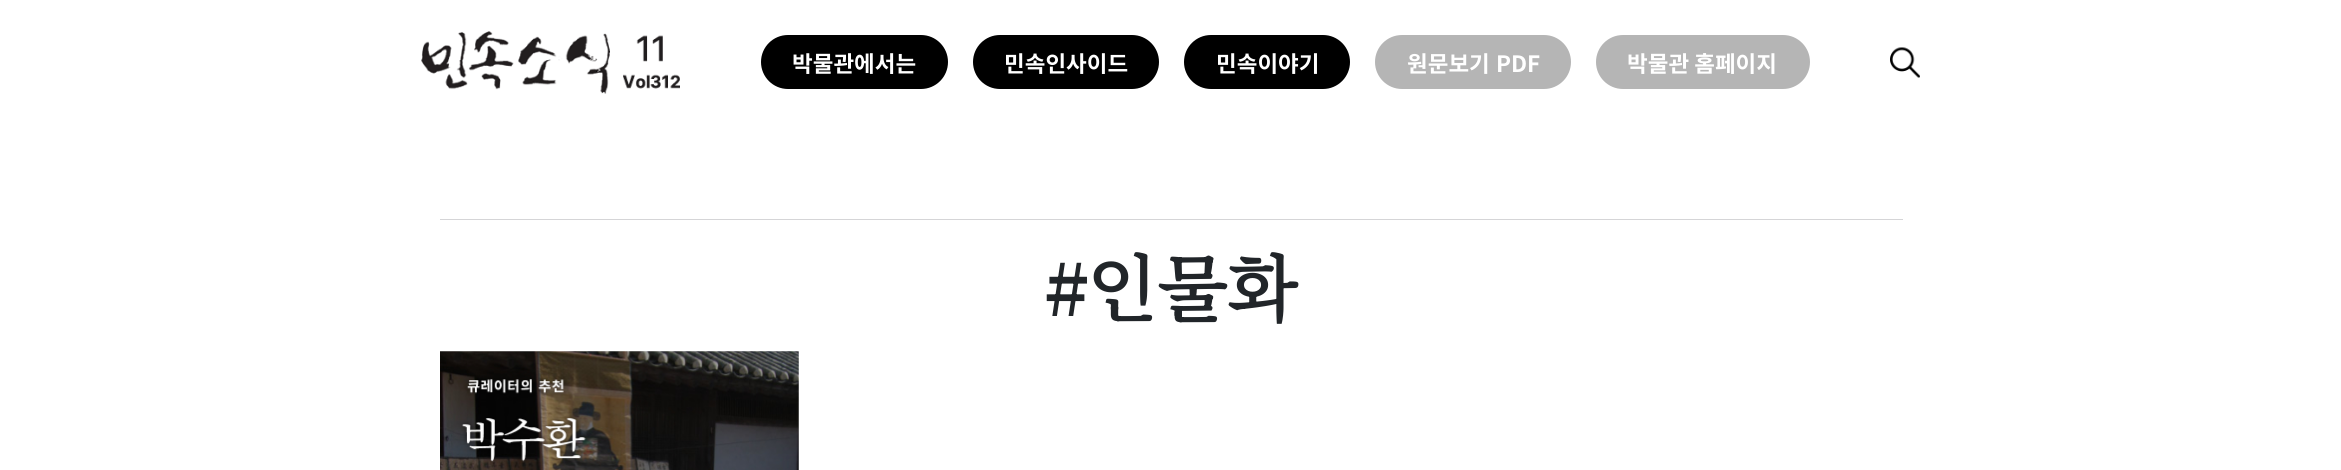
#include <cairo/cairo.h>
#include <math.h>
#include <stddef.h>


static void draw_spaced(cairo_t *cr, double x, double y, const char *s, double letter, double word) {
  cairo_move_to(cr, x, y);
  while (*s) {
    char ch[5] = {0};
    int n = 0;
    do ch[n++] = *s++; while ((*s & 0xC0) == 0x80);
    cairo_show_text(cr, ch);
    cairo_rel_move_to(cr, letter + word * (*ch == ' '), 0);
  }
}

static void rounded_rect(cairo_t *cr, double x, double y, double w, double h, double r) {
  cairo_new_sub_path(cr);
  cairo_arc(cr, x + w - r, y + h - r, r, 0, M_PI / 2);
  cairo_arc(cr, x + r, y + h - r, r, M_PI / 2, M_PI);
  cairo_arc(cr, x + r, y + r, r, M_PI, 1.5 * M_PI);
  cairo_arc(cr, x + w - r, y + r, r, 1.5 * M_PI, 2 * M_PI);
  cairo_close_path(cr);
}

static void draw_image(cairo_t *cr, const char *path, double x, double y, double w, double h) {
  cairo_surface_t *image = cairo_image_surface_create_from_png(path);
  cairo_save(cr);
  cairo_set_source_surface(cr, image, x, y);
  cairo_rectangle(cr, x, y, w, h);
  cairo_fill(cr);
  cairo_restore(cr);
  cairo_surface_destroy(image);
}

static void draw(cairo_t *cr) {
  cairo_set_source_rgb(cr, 1, 1, 1);
  cairo_paint(cr);
  draw_image(cr, "images/1.png", 421, 31, 259, 63);
  cairo_set_source_rgb(cr, 0, 0, 0);
  rounded_rect(cr, 761, 35, 187, 54, 27);
  cairo_fill(cr);
  rounded_rect(cr, 973, 35, 186, 54, 27);
  cairo_fill(cr);
  rounded_rect(cr, 1184, 35, 166, 54, 27);
  cairo_fill(cr);
  cairo_set_source_rgb(cr, 181 / 255.0, 181 / 255.0, 181 / 255.0);
  rounded_rect(cr, 1375, 35, 196, 54, 27);
  cairo_fill(cr);
  rounded_rect(cr, 1596, 35, 214, 54, 27);
  cairo_fill(cr);
  draw_image(cr, "images/2.png", 1890, 47, 30, 31);
  cairo_set_source_rgb(cr, 213 / 255.0, 213 / 255.0, 215 / 255.0);
  cairo_rectangle(cr, 440, 219, 1463, 1);
  cairo_fill(cr);
  draw_image(cr, "images/3.png", 440, 351, 359, 119);
  cairo_select_font_face(cr, "Noto Sans KR", CAIRO_FONT_SLANT_NORMAL, CAIRO_FONT_WEIGHT_BOLD);
  cairo_set_font_size(cr, 22.5);
  cairo_set_source_rgb(cr, 1, 1, 1);
  cairo_move_to(cr, 792, 72);
  cairo_show_text(cr, "박물관에서는");
  cairo_move_to(cr, 1004, 72);
  cairo_show_text(cr, "민속인사이드");
  cairo_move_to(cr, 1216, 72);
  cairo_show_text(cr, "민속이야기");
  draw_spaced(cr, 1407, 72, "원문보기 PDF", 0, 1);
  cairo_move_to(cr, 1627, 72);
  cairo_show_text(cr, "박물관 홈페이지");
  cairo_select_font_face(cr, "Noto Serif KR", CAIRO_FONT_SLANT_NORMAL, CAIRO_FONT_WEIGHT_BOLD);
  cairo_set_font_size(cr, 72.5);
  cairo_set_source_rgb(cr, 33 / 255.0, 37 / 255.0, 41 / 255.0);
  cairo_move_to(cr, 1045, 316);
  cairo_show_text(cr, "#인물화");
}

int main(void) {
  cairo_surface_t *surface = cairo_image_surface_create(CAIRO_FORMAT_RGB24, 2341, 470);
  cairo_t *cr = cairo_create(surface);
  cairo_font_options_t *options = cairo_font_options_create();
  cairo_font_options_set_hint_metrics(options, CAIRO_HINT_METRICS_OFF);
  cairo_font_options_set_hint_style(options, CAIRO_HINT_STYLE_NONE);
  cairo_set_font_options(cr, options);
  cairo_set_miter_limit(cr, 4);
  draw(cr);
  cairo_surface_write_to_png(surface, "out.png");
  cairo_font_options_destroy(options);
  cairo_destroy(cr);
  cairo_surface_destroy(surface);
  return 0;
}
